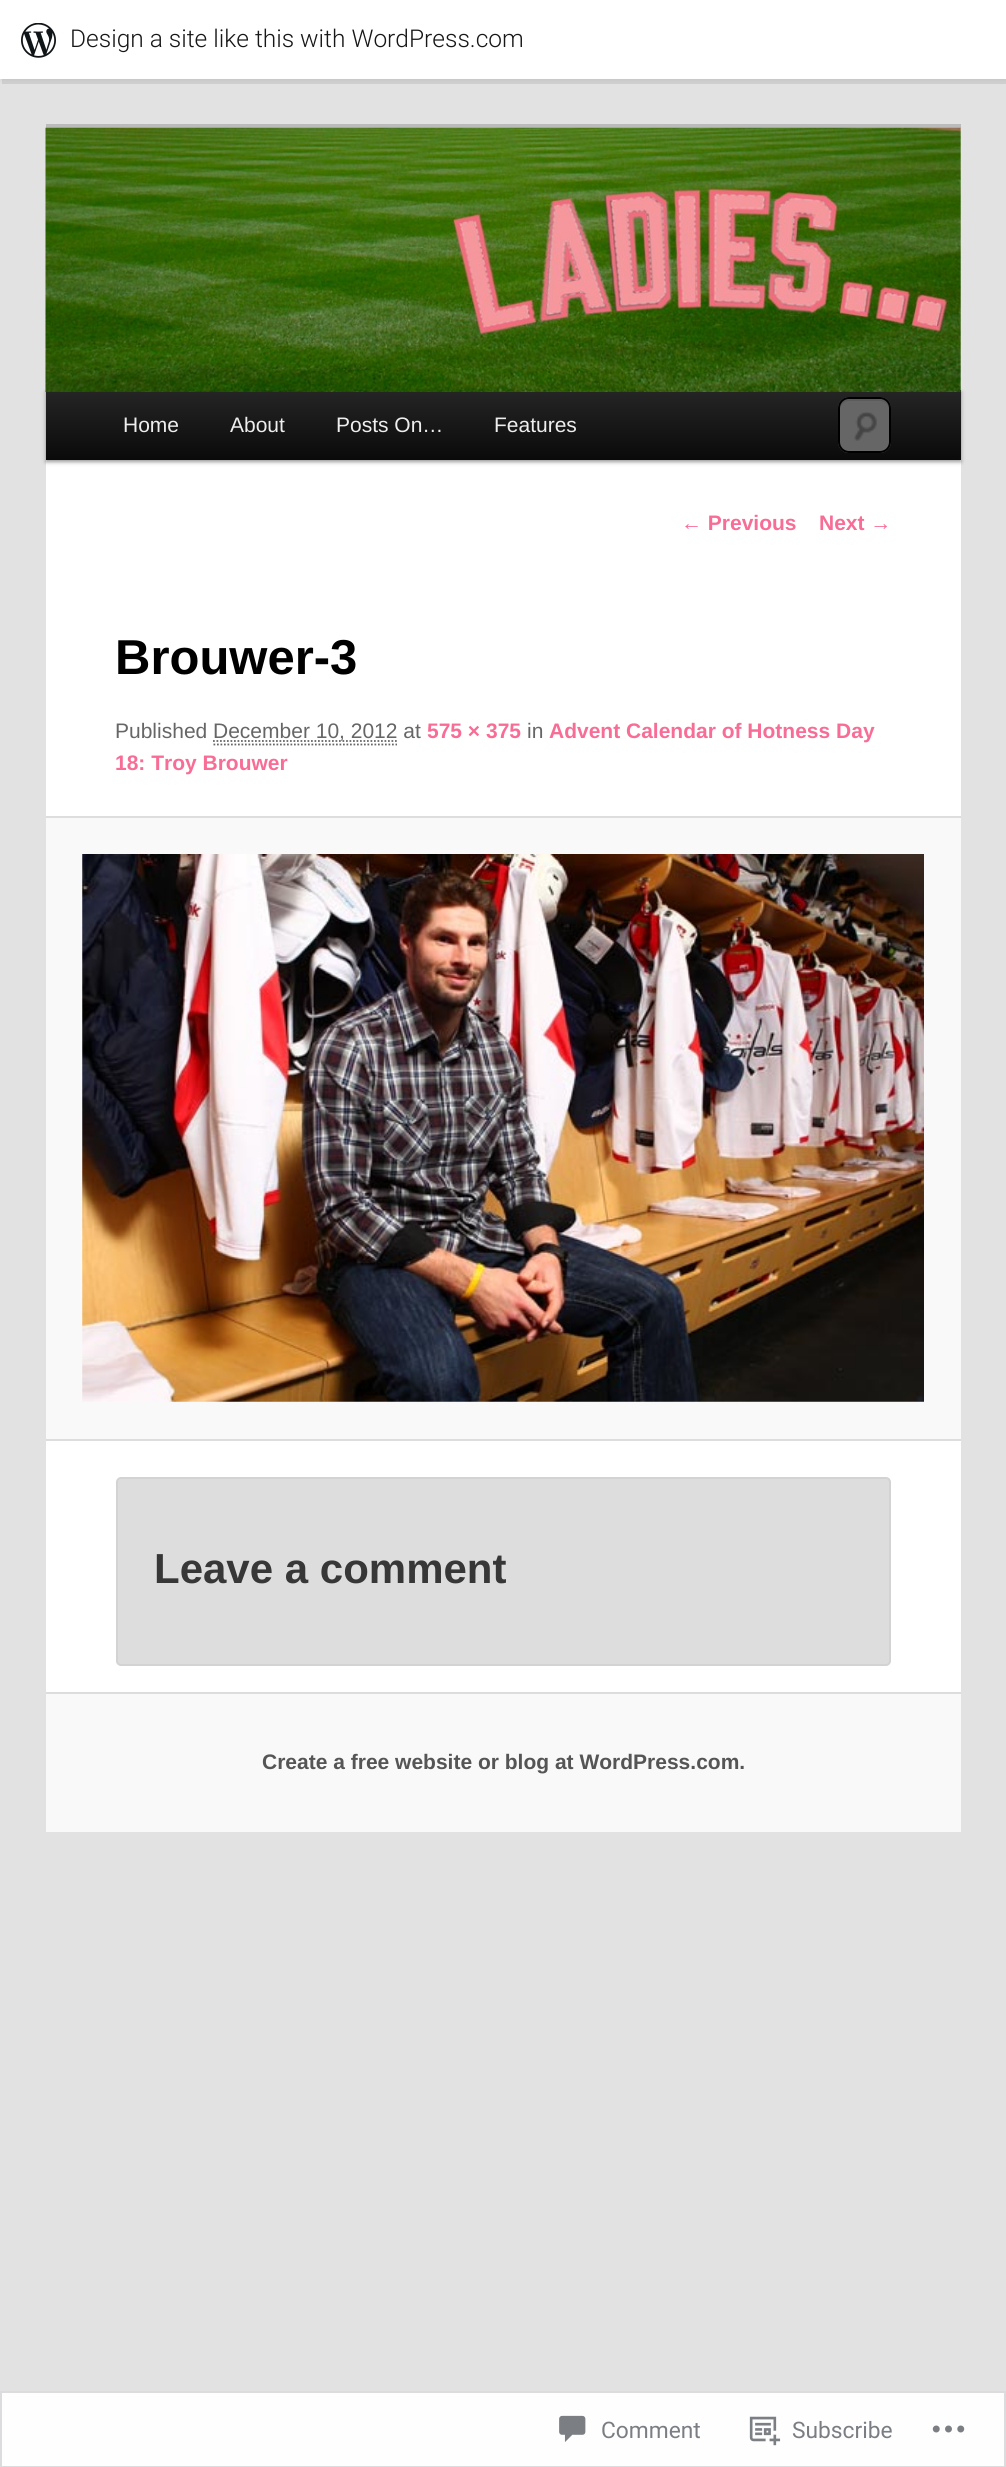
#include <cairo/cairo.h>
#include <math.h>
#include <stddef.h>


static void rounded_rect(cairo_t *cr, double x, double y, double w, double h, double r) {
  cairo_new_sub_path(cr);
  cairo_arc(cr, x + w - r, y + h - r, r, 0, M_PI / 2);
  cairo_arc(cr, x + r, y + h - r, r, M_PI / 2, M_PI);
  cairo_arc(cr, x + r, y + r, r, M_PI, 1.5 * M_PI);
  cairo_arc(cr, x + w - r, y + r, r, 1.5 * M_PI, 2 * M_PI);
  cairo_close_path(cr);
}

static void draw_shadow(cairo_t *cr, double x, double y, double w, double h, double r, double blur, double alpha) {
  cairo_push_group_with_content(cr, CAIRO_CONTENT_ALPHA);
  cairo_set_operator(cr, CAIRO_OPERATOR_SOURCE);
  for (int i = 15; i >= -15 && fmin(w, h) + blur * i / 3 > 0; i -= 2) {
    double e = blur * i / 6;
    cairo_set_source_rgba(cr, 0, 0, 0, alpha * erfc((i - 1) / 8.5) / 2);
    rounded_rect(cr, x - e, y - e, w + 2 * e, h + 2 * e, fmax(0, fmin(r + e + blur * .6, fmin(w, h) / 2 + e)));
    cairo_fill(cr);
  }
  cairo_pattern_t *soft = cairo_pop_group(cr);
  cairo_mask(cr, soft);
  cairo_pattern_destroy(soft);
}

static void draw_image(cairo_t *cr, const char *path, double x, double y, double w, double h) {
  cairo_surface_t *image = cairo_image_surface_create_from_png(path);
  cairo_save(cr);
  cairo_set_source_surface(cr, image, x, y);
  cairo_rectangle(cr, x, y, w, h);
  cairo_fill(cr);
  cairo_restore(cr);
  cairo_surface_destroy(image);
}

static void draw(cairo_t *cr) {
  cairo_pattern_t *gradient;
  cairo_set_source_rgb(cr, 226 / 255.0, 226 / 255.0, 226 / 255.0);
  cairo_paint(cr);
  cairo_set_source_rgb(cr, 0, 0, 0);
  draw_shadow(cr, 0, 2, 1006, 79, 0, 2, 0.05);
  cairo_set_source_rgba(cr, 0, 0, 0, 0.08);
  cairo_new_path(cr);
  cairo_move_to(cr, 2, 79);
  cairo_line_to(cr, 2, 84);
  cairo_line_to(cr, 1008, 84);
  cairo_line_to(cr, 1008, 5);
  cairo_line_to(cr, 1006, 5);
  cairo_line_to(cr, 1006, 79);
  cairo_close_path(cr);
  cairo_fill(cr);
  cairo_set_source_rgb(cr, 1, 1, 1);
  cairo_rectangle(cr, 0, 0, 1006, 79);
  cairo_fill(cr);
  draw_image(cr, "images/1.png", 21, 23, 35, 35);
  cairo_rectangle(cr, 46, 128, 915, 1564);
  cairo_fill(cr);
  cairo_set_source_rgb(cr, 187 / 255.0, 187 / 255.0, 187 / 255.0);
  cairo_rectangle(cr, 46, 124, 915, 4);
  cairo_fill(cr);
  cairo_set_source_rgb(cr, 0, 0, 0);
  draw_shadow(cr, 46, 392, 915, 70, 0, 2, 0.4);
  gradient = cairo_pattern_create_linear(503, 390, 503, 460);
  cairo_pattern_add_color_stop_rgba(gradient, 0, 37 / 255.0, 37 / 255.0, 37 / 255.0, 1);
  cairo_pattern_add_color_stop_rgba(gradient, 1, 10 / 255.0, 10 / 255.0, 10 / 255.0, 1);
  cairo_set_source(cr, gradient);
  cairo_pattern_destroy(gradient);
  cairo_rectangle(cr, 46, 390, 915, 70);
  cairo_fill(cr);
  draw_image(cr, "images/2.png", 45, 127, 916, 265);
  cairo_set_source_rgb(cr, 102 / 255.0, 102 / 255.0, 102 / 255.0);
  rounded_rect(cr, 838, 397, 53, 56, 11);
  cairo_fill(cr);
  draw_image(cr, "images/3.png", 854, 412, 23, 29);
  cairo_set_source_rgb(cr, 92 / 255.0, 92 / 255.0, 92 / 255.0);
  cairo_new_path(cr);
  cairo_move_to(cr, 849, 401);
  cairo_line_to(cr, 880, 401);
  cairo_curve_to(cr, 885, 401, 889, 405, 889, 410);
  cairo_curve_to(cr, 889, 400, 884, 399, 875, 399);
  cairo_line_to(cr, 854, 399);
  cairo_curve_to(cr, 845, 399, 840, 400, 840, 410);
  cairo_curve_to(cr, 840, 405, 844, 401, 849, 401);
  cairo_close_path(cr);
  cairo_fill(cr);
  rounded_rect(cr, 839, 398, 51, 54, 10);
  cairo_set_source_rgb(cr, 0, 0, 0);
  cairo_stroke(cr);
  cairo_new_path(cr);
  cairo_move_to(cr, 213.5, 744.5);
  cairo_line_to(cr, 397, 744.5);
  cairo_set_source_rgb(cr, 102 / 255.0, 102 / 255.0, 102 / 255.0);
  cairo_set_line_width(cr, 1.8);
  cairo_set_dash(cr, (double[]){1.75, 1.75}, 2, 0);
  cairo_stroke(cr);
  cairo_new_path(cr);
  cairo_move_to(cr, 213, 741);
  cairo_line_to(cr, 397.5, 741);
  cairo_stroke(cr);
  cairo_set_source_rgb(cr, 249 / 255.0, 249 / 255.0, 249 / 255.0);
  cairo_rectangle(cr, 46, 818, 915, 621);
  cairo_fill(cr);
  cairo_set_source_rgb(cr, 221 / 255.0, 221 / 255.0, 221 / 255.0);
  cairo_rectangle(cr, 46, 816, 915, 2);
  cairo_fill(cr);
  cairo_rectangle(cr, 46, 1439, 915, 2);
  cairo_fill(cr);
  draw_image(cr, "images/4.png", 82, 854, 842, 548);
  rounded_rect(cr, 117, 1478, 773, 187, 4);
  cairo_fill_preserve(cr);
  cairo_set_source_rgb(cr, 211 / 255.0, 211 / 255.0, 211 / 255.0);
  cairo_set_line_width(cr, 2);
  cairo_set_dash(cr, NULL, 0, 0);
  cairo_stroke(cr);
  cairo_set_source_rgb(cr, 249 / 255.0, 249 / 255.0, 249 / 255.0);
  cairo_rectangle(cr, 46, 1694, 915, 138);
  cairo_fill(cr);
  cairo_set_source_rgb(cr, 221 / 255.0, 221 / 255.0, 221 / 255.0);
  cairo_rectangle(cr, 46, 1692, 915, 2);
  cairo_fill(cr);
  cairo_set_source_rgb(cr, 254 / 255.0, 254 / 255.0, 254 / 255.0);
  cairo_rectangle(cr, 1, 2392, 1004, 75);
  cairo_fill_preserve(cr);
  cairo_set_source_rgb(cr, 220 / 255.0, 220 / 255.0, 222 / 255.0);
  cairo_stroke(cr);
  draw_image(cr, "images/5.png", 559, 2415, 27, 27);
  draw_image(cr, "images/6.png", 749, 2416, 32, 30);
  draw_image(cr, "images/7.png", 932, 2425, 33, 8);
  cairo_select_font_face(cr, "Roboto Light", CAIRO_FONT_SLANT_NORMAL, CAIRO_FONT_WEIGHT_NORMAL);
  cairo_set_font_size(cr, 24.5);
  cairo_set_source_rgb(cr, 23 / 255.0, 23 / 255.0, 23 / 255.0);
  cairo_move_to(cr, 70, 47);
  cairo_show_text(cr, "Design a site like this with WordPress.com");
  cairo_select_font_face(cr, "Liberation Sans", CAIRO_FONT_SLANT_NORMAL, CAIRO_FONT_WEIGHT_NORMAL);
  cairo_set_font_size(cr, 21);
  cairo_set_source_rgb(cr, 238 / 255.0, 238 / 255.0, 238 / 255.0);
  cairo_move_to(cr, 123, 432);
  cairo_show_text(cr, "Home");
  cairo_move_to(cr, 230, 432);
  cairo_show_text(cr, "About");
  cairo_move_to(cr, 336, 432);
  cairo_show_text(cr, "Posts On…");
  cairo_move_to(cr, 494, 432);
  cairo_show_text(cr, "Features");
  cairo_select_font_face(cr, "Liberation Sans", CAIRO_FONT_SLANT_NORMAL, CAIRO_FONT_WEIGHT_BOLD);
  cairo_set_source_rgb(cr, 247 / 255.0, 109 / 255.0, 150 / 255.0);
  cairo_move_to(cr, 681, 530);
  cairo_show_text(cr, "← Previous");
  cairo_move_to(cr, 819, 530);
  cairo_show_text(cr, "Next →");
  cairo_set_font_size(cr, 49);
  cairo_set_source_rgb(cr, 0, 0, 0);
  cairo_move_to(cr, 115, 674);
  cairo_show_text(cr, "Brouwer-3");
  cairo_select_font_face(cr, "Liberation Sans", CAIRO_FONT_SLANT_NORMAL, CAIRO_FONT_WEIGHT_NORMAL);
  cairo_set_font_size(cr, 21);
  cairo_set_source_rgb(cr, 102 / 255.0, 102 / 255.0, 102 / 255.0);
  cairo_move_to(cr, 115, 738);
  cairo_show_text(cr, "Published");
  cairo_move_to(cr, 213, 738);
  cairo_show_text(cr, "December 10, 2012 at");
  cairo_select_font_face(cr, "Liberation Sans", CAIRO_FONT_SLANT_NORMAL, CAIRO_FONT_WEIGHT_BOLD);
  cairo_set_source_rgb(cr, 247 / 255.0, 109 / 255.0, 150 / 255.0);
  cairo_move_to(cr, 427, 738);
  cairo_show_text(cr, "575 × 375");
  cairo_select_font_face(cr, "Liberation Sans", CAIRO_FONT_SLANT_NORMAL, CAIRO_FONT_WEIGHT_NORMAL);
  cairo_set_source_rgb(cr, 102 / 255.0, 102 / 255.0, 102 / 255.0);
  cairo_move_to(cr, 527, 738);
  cairo_show_text(cr, "in");
  cairo_select_font_face(cr, "Liberation Sans", CAIRO_FONT_SLANT_NORMAL, CAIRO_FONT_WEIGHT_BOLD);
  cairo_set_source_rgb(cr, 247 / 255.0, 109 / 255.0, 150 / 255.0);
  cairo_move_to(cr, 549, 738);
  cairo_show_text(cr, "Advent Calendar of Hotness Day");
  cairo_move_to(cr, 115, 770);
  cairo_show_text(cr, "18: Troy Brouwer");
  cairo_set_font_size(cr, 42);
  cairo_set_source_rgb(cr, 55 / 255.0, 55 / 255.0, 55 / 255.0);
  cairo_move_to(cr, 154, 1583);
  cairo_show_text(cr, "Leave a comment");
  cairo_set_font_size(cr, 21);
  cairo_set_source_rgb(cr, 85 / 255.0, 85 / 255.0, 85 / 255.0);
  cairo_move_to(cr, 262, 1769);
  cairo_show_text(cr, "Create a free website or blog at WordPress.com.");
  cairo_select_font_face(cr, "Roboto", CAIRO_FONT_SLANT_NORMAL, CAIRO_FONT_WEIGHT_NORMAL);
  cairo_set_font_size(cr, 22.75);
  cairo_set_source_rgb(cr, 122 / 255.0, 126 / 255.0, 132 / 255.0);
  cairo_move_to(cr, 601, 2438);
  cairo_show_text(cr, "Comment");
  cairo_move_to(cr, 792, 2438);
  cairo_show_text(cr, "Subscribe");
}

int main(void) {
  cairo_surface_t *surface = cairo_image_surface_create(CAIRO_FORMAT_RGB24, 1006, 2467);
  cairo_t *cr = cairo_create(surface);
  cairo_font_options_t *options = cairo_font_options_create();
  cairo_font_options_set_hint_metrics(options, CAIRO_HINT_METRICS_OFF);
  cairo_font_options_set_hint_style(options, CAIRO_HINT_STYLE_NONE);
  cairo_set_font_options(cr, options);
  cairo_set_miter_limit(cr, 4);
  draw(cr);
  cairo_surface_write_to_png(surface, "out.png");
  cairo_font_options_destroy(options);
  cairo_destroy(cr);
  cairo_surface_destroy(surface);
  return 0;
}
